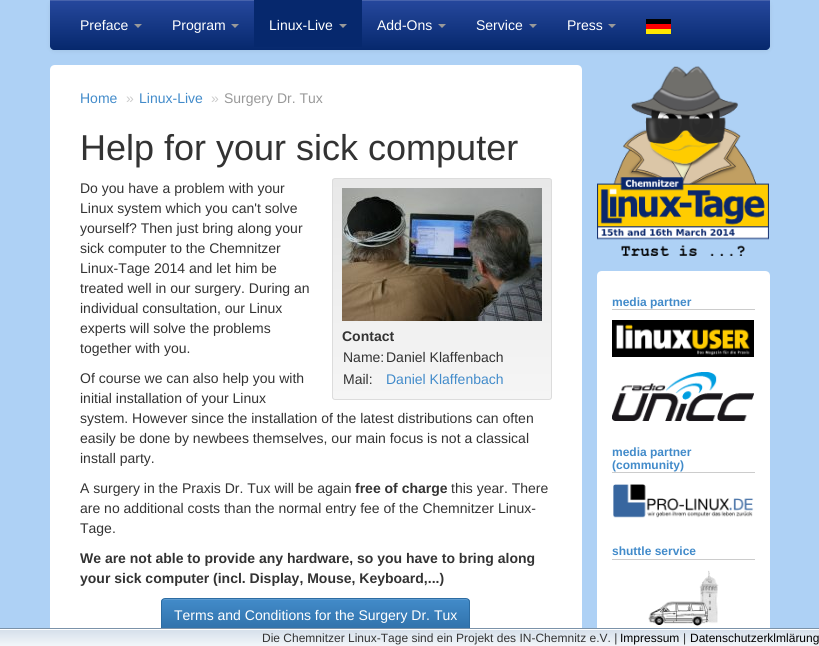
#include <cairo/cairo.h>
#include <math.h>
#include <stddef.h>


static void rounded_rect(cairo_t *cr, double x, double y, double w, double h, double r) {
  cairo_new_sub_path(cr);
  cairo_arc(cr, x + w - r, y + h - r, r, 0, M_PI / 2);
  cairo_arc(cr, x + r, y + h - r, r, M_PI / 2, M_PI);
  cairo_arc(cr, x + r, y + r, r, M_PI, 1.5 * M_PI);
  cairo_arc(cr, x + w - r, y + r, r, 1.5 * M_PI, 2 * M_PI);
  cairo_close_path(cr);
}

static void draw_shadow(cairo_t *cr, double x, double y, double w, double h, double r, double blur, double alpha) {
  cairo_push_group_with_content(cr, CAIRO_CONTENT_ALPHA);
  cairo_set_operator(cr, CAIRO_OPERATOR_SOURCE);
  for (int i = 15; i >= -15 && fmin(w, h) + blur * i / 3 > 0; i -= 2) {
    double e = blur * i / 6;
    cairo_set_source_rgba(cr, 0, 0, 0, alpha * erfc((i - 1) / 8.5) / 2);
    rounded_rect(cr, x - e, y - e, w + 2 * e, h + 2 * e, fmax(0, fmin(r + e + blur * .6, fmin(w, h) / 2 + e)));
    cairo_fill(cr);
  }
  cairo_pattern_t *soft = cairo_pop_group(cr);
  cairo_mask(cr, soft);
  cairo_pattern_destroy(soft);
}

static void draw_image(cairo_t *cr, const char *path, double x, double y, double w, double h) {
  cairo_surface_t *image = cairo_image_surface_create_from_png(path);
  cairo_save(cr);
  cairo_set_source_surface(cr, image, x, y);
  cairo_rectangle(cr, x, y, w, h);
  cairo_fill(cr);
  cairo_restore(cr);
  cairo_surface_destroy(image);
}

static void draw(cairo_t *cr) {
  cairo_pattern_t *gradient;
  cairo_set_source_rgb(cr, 174 / 255.0, 209 / 255.0, 245 / 255.0);
  cairo_paint(cr);
  cairo_set_source_rgb(cr, 0, 0, 0);
  draw_shadow(cr, 50, 1, 720, 50, 4, 2.5, 0.07);
  gradient = cairo_pattern_create_linear(410, 0, 410, 50);
  cairo_pattern_add_color_stop_rgba(gradient, 0, 38 / 255.0, 72 / 255.0, 157 / 255.0, 1);
  cairo_pattern_add_color_stop_rgba(gradient, 1, 6 / 255.0, 40 / 255.0, 109 / 255.0, 1);
  cairo_set_source(cr, gradient);
  cairo_pattern_destroy(gradient);
  cairo_new_path(cr);
  cairo_move_to(cr, 50, 0);
  cairo_line_to(cr, 770, 0);
  cairo_line_to(cr, 770, 46);
  cairo_curve_to(cr, 770, 48, 768, 50, 766, 50);
  cairo_line_to(cr, 54, 50);
  cairo_curve_to(cr, 52, 50, 50, 48, 50, 46);
  cairo_close_path(cr);
  cairo_fill(cr);
  cairo_set_source_rgb(cr, 71 / 255.0, 99 / 255.0, 172 / 255.0);
  cairo_rectangle(cr, 50, 0, 720, 1);
  cairo_fill(cr);
  cairo_set_source_rgb(cr, 153 / 255.0, 153 / 255.0, 153 / 255.0);
  cairo_new_path(cr);
  cairo_move_to(cr, 134, 24);
  cairo_line_to(cr, 142, 24);
  cairo_line_to(cr, 138, 28);
  cairo_close_path(cr);
  cairo_fill(cr);
  cairo_new_path(cr);
  cairo_move_to(cr, 231, 24);
  cairo_line_to(cr, 239, 24);
  cairo_line_to(cr, 235, 28);
  cairo_close_path(cr);
  cairo_fill(cr);
  cairo_set_source_rgb(cr, 6 / 255.0, 40 / 255.0, 109 / 255.0);
  cairo_rectangle(cr, 254, 0, 108, 47);
  cairo_fill(cr);
  cairo_set_source_rgb(cr, 153 / 255.0, 153 / 255.0, 153 / 255.0);
  cairo_new_path(cr);
  cairo_move_to(cr, 339, 24);
  cairo_line_to(cr, 347, 24);
  cairo_line_to(cr, 343, 28);
  cairo_close_path(cr);
  cairo_fill(cr);
  cairo_new_path(cr);
  cairo_move_to(cr, 438, 24);
  cairo_line_to(cr, 446, 24);
  cairo_line_to(cr, 442, 28);
  cairo_close_path(cr);
  cairo_fill(cr);
  cairo_new_path(cr);
  cairo_move_to(cr, 529, 24);
  cairo_line_to(cr, 537, 24);
  cairo_line_to(cr, 533, 28);
  cairo_close_path(cr);
  cairo_fill(cr);
  cairo_new_path(cr);
  cairo_move_to(cr, 608, 24);
  cairo_line_to(cr, 616, 24);
  cairo_line_to(cr, 612, 28);
  cairo_close_path(cr);
  cairo_fill(cr);
  draw_image(cr, "images/1.png", 646, 19, 25, 15);
  cairo_set_source_rgb(cr, 1, 1, 1);
  cairo_new_path(cr);
  cairo_move_to(cr, 55, 65);
  cairo_line_to(cr, 577, 65);
  cairo_curve_to(cr, 580, 65, 582, 67, 582, 70);
  cairo_line_to(cr, 582, 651);
  cairo_line_to(cr, 50, 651);
  cairo_line_to(cr, 50, 70);
  cairo_curve_to(cr, 50, 67, 52, 65, 55, 65);
  cairo_close_path(cr);
  cairo_fill(cr);
  cairo_save(cr);
  rounded_rect(cr, 332, 178, 220, 222, 3);
  cairo_clip(cr);
  gradient = cairo_pattern_create_linear(442, 179, 442, 399);
  cairo_pattern_add_color_stop_rgba(gradient, 0, 232 / 255.0, 232 / 255.0, 232 / 255.0, 1);
  cairo_pattern_add_color_stop_rgba(gradient, 1, 245 / 255.0, 245 / 255.0, 245 / 255.0, 1);
  cairo_set_source(cr, gradient);
  cairo_pattern_destroy(gradient);
  cairo_rectangle(cr, 332, 179, 220, 220);
  cairo_fill(cr);
  cairo_restore(cr);
  rounded_rect(cr, 332.5, 178.5, 219, 221, 2.5);
  cairo_set_source_rgb(cr, 220 / 255.0, 220 / 255.0, 220 / 255.0);
  cairo_set_line_width(cr, 1);
  cairo_stroke(cr);
  draw_image(cr, "images/2.png", 342, 188, 200, 133);
  cairo_save(cr);
  rounded_rect(cr, 161, 598, 309, 34, 4);
  cairo_clip(cr);
  gradient = cairo_pattern_create_linear(316, 599, 316, 631);
  cairo_pattern_add_color_stop_rgba(gradient, 0, 66 / 255.0, 139 / 255.0, 202 / 255.0, 1);
  cairo_pattern_add_color_stop_rgba(gradient, 1, 48 / 255.0, 113 / 255.0, 169 / 255.0, 1);
  cairo_set_source(cr, gradient);
  cairo_pattern_destroy(gradient);
  cairo_rectangle(cr, 161, 599, 309, 29);
  cairo_fill(cr);
  cairo_restore(cr);
  cairo_set_source_rgb(cr, 94 / 255.0, 156 / 255.0, 209 / 255.0);
  cairo_new_path(cr);
  cairo_move_to(cr, 165, 600);
  cairo_line_to(cr, 466, 600);
  cairo_curve_to(cr, 468, 600, 469, 601, 469, 603);
  cairo_line_to(cr, 468, 600);
  cairo_line_to(cr, 467, 599);
  cairo_line_to(cr, 165, 599);
  cairo_curve_to(cr, 163, 599, 162, 601, 162, 603);
  cairo_curve_to(cr, 162, 601, 163, 600, 165, 600);
  cairo_close_path(cr);
  cairo_fill(cr);
  rounded_rect(cr, 161.5, 598.5, 308, 33, 3.5);
  cairo_set_source_rgb(cr, 45 / 255.0, 108 / 255.0, 162 / 255.0);
  cairo_stroke(cr);
  draw_image(cr, "images/3.png", 597, 66, 172, 190);
  cairo_set_source_rgb(cr, 1, 1, 1);
  cairo_new_path(cr);
  cairo_move_to(cr, 602, 271);
  cairo_line_to(cr, 765, 271);
  cairo_curve_to(cr, 768, 271, 770, 273, 770, 276);
  cairo_line_to(cr, 770, 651);
  cairo_line_to(cr, 597, 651);
  cairo_line_to(cr, 597, 276);
  cairo_curve_to(cr, 597, 273, 599, 271, 602, 271);
  cairo_close_path(cr);
  cairo_fill(cr);
  cairo_set_source_rgb(cr, 204 / 255.0, 204 / 255.0, 204 / 255.0);
  cairo_rectangle(cr, 612, 309, 143, 1);
  cairo_fill(cr);
  draw_image(cr, "images/4.png", 612, 320, 142, 37);
  draw_image(cr, "images/5.png", 612, 372, 142, 49);
  cairo_rectangle(cr, 612, 472, 143, 1);
  cairo_fill(cr);
  draw_image(cr, "images/6.png", 613, 484, 141, 34);
  cairo_rectangle(cr, 612, 559, 143, 1);
  cairo_fill(cr);
  draw_image(cr, "images/7.png", 648, 570, 71, 56);
  gradient = cairo_pattern_create_linear(410, 630, 410, 646);
  cairo_pattern_add_color_stop_rgba(gradient, 0, 214 / 255.0, 224 / 255.0, 235 / 255.0, 1);
  cairo_pattern_add_color_stop_rgba(gradient, 1, 242 / 255.0, 246 / 255.0, 249 / 255.0, 1);
  cairo_set_source(cr, gradient);
  cairo_pattern_destroy(gradient);
  cairo_rectangle(cr, 0, 630, 819, 16);
  cairo_fill(cr);
  cairo_set_source_rgb(cr, 1, 1, 1);
  cairo_rectangle(cr, 0, 629, 819, 1);
  cairo_fill(cr);
  cairo_rectangle(cr, -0.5, 628.5, 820, 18);
  cairo_set_source_rgb(cr, 123 / 255.0, 146 / 255.0, 169 / 255.0);
  cairo_stroke(cr);
  cairo_select_font_face(cr, "Liberation Sans", CAIRO_FONT_SLANT_NORMAL, CAIRO_FONT_WEIGHT_NORMAL);
  cairo_set_font_size(cr, 14);
  cairo_set_source_rgb(cr, 1, 1, 1);
  cairo_move_to(cr, 80, 30);
  cairo_show_text(cr, "Preface");
  cairo_move_to(cr, 172, 30);
  cairo_show_text(cr, "Program");
  cairo_move_to(cr, 269, 30);
  cairo_show_text(cr, "Linux-Live");
  cairo_move_to(cr, 377, 30);
  cairo_show_text(cr, "Add-Ons");
  cairo_move_to(cr, 476, 30);
  cairo_show_text(cr, "Service");
  cairo_move_to(cr, 567, 30);
  cairo_show_text(cr, "Press");
  cairo_set_source_rgb(cr, 66 / 255.0, 139 / 255.0, 202 / 255.0);
  cairo_move_to(cr, 80, 103);
  cairo_show_text(cr, "Home");
  cairo_set_source_rgb(cr, 204 / 255.0, 204 / 255.0, 204 / 255.0);
  cairo_move_to(cr, 126, 103);
  cairo_show_text(cr, "»");
  cairo_set_source_rgb(cr, 66 / 255.0, 139 / 255.0, 202 / 255.0);
  cairo_move_to(cr, 139, 103);
  cairo_show_text(cr, "Linux-Live");
  cairo_set_source_rgb(cr, 204 / 255.0, 204 / 255.0, 204 / 255.0);
  cairo_move_to(cr, 211, 103);
  cairo_show_text(cr, "»");
  cairo_set_source_rgb(cr, 153 / 255.0, 153 / 255.0, 153 / 255.0);
  cairo_move_to(cr, 224, 103);
  cairo_show_text(cr, "Surgery Dr. Tux");
  cairo_set_font_size(cr, 36);
  cairo_set_source_rgb(cr, 51 / 255.0, 51 / 255.0, 51 / 255.0);
  cairo_move_to(cr, 80, 160);
  cairo_show_text(cr, "Help for your sick computer");
  cairo_set_font_size(cr, 14);
  cairo_move_to(cr, 80, 193);
  cairo_show_text(cr, "Do you have a problem with your");
  cairo_move_to(cr, 80, 213);
  cairo_show_text(cr, "Linux system which you can't solve");
  cairo_move_to(cr, 80, 233);
  cairo_show_text(cr, "yourself? Then just bring along your");
  cairo_move_to(cr, 80, 253);
  cairo_show_text(cr, "sick computer to the Chemnitzer");
  cairo_move_to(cr, 80, 273);
  cairo_show_text(cr, "Linux-Tage 2014 and let him be");
  cairo_move_to(cr, 80, 293);
  cairo_show_text(cr, "treated well in our surgery. During an");
  cairo_move_to(cr, 80, 313);
  cairo_show_text(cr, "individual consultation, our Linux");
  cairo_move_to(cr, 80, 333);
  cairo_show_text(cr, "experts will solve the problems");
  cairo_move_to(cr, 80, 353);
  cairo_show_text(cr, "together with you.");
  cairo_select_font_face(cr, "Liberation Sans", CAIRO_FONT_SLANT_NORMAL, CAIRO_FONT_WEIGHT_BOLD);
  cairo_move_to(cr, 342, 341);
  cairo_show_text(cr, "Contact");
  cairo_select_font_face(cr, "Liberation Sans", CAIRO_FONT_SLANT_NORMAL, CAIRO_FONT_WEIGHT_NORMAL);
  cairo_move_to(cr, 343, 362);
  cairo_show_text(cr, "Name:");
  cairo_move_to(cr, 386, 362);
  cairo_show_text(cr, "Daniel Klaffenbach");
  cairo_move_to(cr, 343, 384);
  cairo_show_text(cr, "Mail:");
  cairo_set_source_rgb(cr, 66 / 255.0, 139 / 255.0, 202 / 255.0);
  cairo_move_to(cr, 386, 384);
  cairo_show_text(cr, "Daniel Klaffenbach");
  cairo_set_source_rgb(cr, 51 / 255.0, 51 / 255.0, 51 / 255.0);
  cairo_move_to(cr, 80, 383);
  cairo_show_text(cr, "Of course we can also help you with");
  cairo_move_to(cr, 80, 403);
  cairo_show_text(cr, "initial installation of your Linux");
  cairo_move_to(cr, 80, 423);
  cairo_show_text(cr, "system. However since the installation of the latest distributions can often");
  cairo_move_to(cr, 80, 443);
  cairo_show_text(cr, "easily be done by newbees themselves, our main focus is not a classical");
  cairo_move_to(cr, 80, 463);
  cairo_show_text(cr, "install party.");
  cairo_move_to(cr, 80, 493);
  cairo_show_text(cr, "A surgery in the Praxis Dr. Tux will be again");
  cairo_select_font_face(cr, "Liberation Sans", CAIRO_FONT_SLANT_NORMAL, CAIRO_FONT_WEIGHT_BOLD);
  cairo_move_to(cr, 355, 493);
  cairo_show_text(cr, "free of charge");
  cairo_select_font_face(cr, "Liberation Sans", CAIRO_FONT_SLANT_NORMAL, CAIRO_FONT_WEIGHT_NORMAL);
  cairo_move_to(cr, 451, 493);
  cairo_show_text(cr, "this year. There");
  cairo_move_to(cr, 80, 513);
  cairo_show_text(cr, "are no additional costs than the normal entry fee of the Chemnitzer Linux-");
  cairo_move_to(cr, 80, 533);
  cairo_show_text(cr, "Tage.");
  cairo_select_font_face(cr, "Liberation Sans", CAIRO_FONT_SLANT_NORMAL, CAIRO_FONT_WEIGHT_BOLD);
  cairo_move_to(cr, 80, 563);
  cairo_show_text(cr, "We are not able to provide any hardware, so you have to bring along");
  cairo_move_to(cr, 80, 583);
  cairo_show_text(cr, "your sick computer (incl. Display, Mouse, Keyboard,...)");
  cairo_select_font_face(cr, "Liberation Sans", CAIRO_FONT_SLANT_NORMAL, CAIRO_FONT_WEIGHT_NORMAL);
  cairo_set_source_rgb(cr, 1, 1, 1);
  cairo_move_to(cr, 174, 620);
  cairo_show_text(cr, "Terms and Conditions for the Surgery Dr. Tux");
  cairo_select_font_face(cr, "Liberation Sans", CAIRO_FONT_SLANT_NORMAL, CAIRO_FONT_WEIGHT_BOLD);
  cairo_set_font_size(cr, 12);
  cairo_set_source_rgb(cr, 66 / 255.0, 139 / 255.0, 202 / 255.0);
  cairo_move_to(cr, 612, 306);
  cairo_show_text(cr, "media partner");
  cairo_move_to(cr, 612, 456);
  cairo_show_text(cr, "media partner");
  cairo_move_to(cr, 612, 469);
  cairo_show_text(cr, "(community)");
  cairo_move_to(cr, 612, 555);
  cairo_show_text(cr, "shuttle service");
  cairo_select_font_face(cr, "Liberation Sans", CAIRO_FONT_SLANT_NORMAL, CAIRO_FONT_WEIGHT_NORMAL);
  cairo_set_source_rgb(cr, 51 / 255.0, 51 / 255.0, 51 / 255.0);
  cairo_move_to(cr, 262, 642);
  cairo_show_text(cr, "Die Chemnitzer Linux-Tage sind ein Projekt des IN-Chemnitz e.V. |");
  cairo_set_source_rgb(cr, 0, 0, 0);
  cairo_move_to(cr, 620, 642);
  cairo_show_text(cr, "Impressum");
  cairo_set_source_rgb(cr, 51 / 255.0, 51 / 255.0, 51 / 255.0);
  cairo_move_to(cr, 683, 642);
  cairo_show_text(cr, "|");
  cairo_set_source_rgb(cr, 0, 0, 0);
  cairo_move_to(cr, 690, 642);
  cairo_show_text(cr, "Datenschutzerklmlärung");
}

int main(void) {
  cairo_surface_t *surface = cairo_image_surface_create(CAIRO_FORMAT_RGB24, 819, 646);
  cairo_t *cr = cairo_create(surface);
  cairo_font_options_t *options = cairo_font_options_create();
  cairo_font_options_set_hint_metrics(options, CAIRO_HINT_METRICS_OFF);
  cairo_font_options_set_hint_style(options, CAIRO_HINT_STYLE_NONE);
  cairo_set_font_options(cr, options);
  cairo_set_miter_limit(cr, 4);
  draw(cr);
  cairo_surface_write_to_png(surface, "out.png");
  cairo_font_options_destroy(options);
  cairo_destroy(cr);
  cairo_surface_destroy(surface);
  return 0;
}
